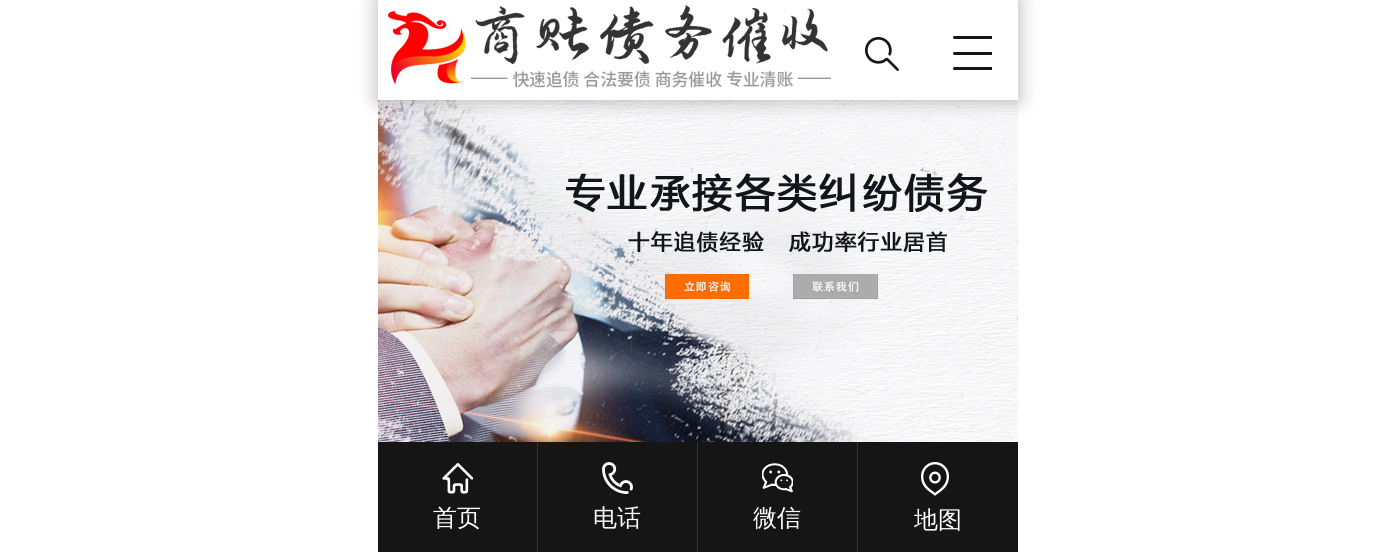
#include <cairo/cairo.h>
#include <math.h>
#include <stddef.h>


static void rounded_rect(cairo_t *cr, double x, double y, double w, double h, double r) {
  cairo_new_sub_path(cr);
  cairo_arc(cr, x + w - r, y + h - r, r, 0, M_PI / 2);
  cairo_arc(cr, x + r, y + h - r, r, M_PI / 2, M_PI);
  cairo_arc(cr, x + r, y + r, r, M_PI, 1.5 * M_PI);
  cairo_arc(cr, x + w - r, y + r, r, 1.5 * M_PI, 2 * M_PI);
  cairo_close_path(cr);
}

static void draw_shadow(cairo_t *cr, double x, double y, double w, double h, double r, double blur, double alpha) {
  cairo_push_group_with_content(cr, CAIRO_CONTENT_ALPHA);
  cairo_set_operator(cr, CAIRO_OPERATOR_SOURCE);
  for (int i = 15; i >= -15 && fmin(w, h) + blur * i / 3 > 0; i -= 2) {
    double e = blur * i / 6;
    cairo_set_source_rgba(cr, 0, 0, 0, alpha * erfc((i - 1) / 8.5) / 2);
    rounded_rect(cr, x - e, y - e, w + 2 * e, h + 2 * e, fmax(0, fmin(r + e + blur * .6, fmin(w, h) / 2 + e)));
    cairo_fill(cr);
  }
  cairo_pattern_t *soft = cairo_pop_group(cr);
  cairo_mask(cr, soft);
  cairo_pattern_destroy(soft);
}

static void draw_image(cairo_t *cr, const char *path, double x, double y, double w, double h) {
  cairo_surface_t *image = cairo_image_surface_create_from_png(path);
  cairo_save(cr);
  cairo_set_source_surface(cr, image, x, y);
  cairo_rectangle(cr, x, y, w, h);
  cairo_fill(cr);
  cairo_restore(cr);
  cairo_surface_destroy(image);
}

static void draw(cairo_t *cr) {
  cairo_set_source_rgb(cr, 1, 1, 1);
  cairo_paint(cr);
  draw_image(cr, "images/4.png", 378, 100, 640, 342);
  cairo_save(cr);
  cairo_set_fill_rule(cr, CAIRO_FILL_RULE_EVEN_ODD);
  cairo_new_path(cr);
  cairo_move_to(cr, 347, 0);
  cairo_line_to(cr, 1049, 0);
  cairo_line_to(cr, 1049, 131);
  cairo_line_to(cr, 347, 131);
  cairo_close_path(cr);
  cairo_move_to(cr, 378, 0);
  cairo_line_to(cr, 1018, 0);
  cairo_line_to(cr, 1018, 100);
  cairo_line_to(cr, 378, 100);
  cairo_close_path(cr);
  cairo_clip(cr);
  cairo_set_source_rgb(cr, 0, 0, 0);
  draw_shadow(cr, 378, 0, 640, 100, 0, 10, 0.3);
  cairo_restore(cr);
  draw_image(cr, "images/1.png", 388, 0, 450, 100);
  draw_image(cr, "images/2.png", 865, 37, 34, 34);
  draw_image(cr, "images/3.png", 953, 36, 39, 34);
  cairo_set_source_rgb(cr, 21 / 255.0, 21 / 255.0, 21 / 255.0);
  cairo_rectangle(cr, 378, 442, 640, 110);
  cairo_fill(cr);
  cairo_set_source_rgb(cr, 51 / 255.0, 51 / 255.0, 51 / 255.0);
  cairo_rectangle(cr, 537, 442, 1, 110);
  cairo_fill(cr);
  draw_image(cr, "images/5.png", 442, 463, 31, 31);
  cairo_rectangle(cr, 697, 442, 1, 110);
  cairo_fill(cr);
  draw_image(cr, "images/6.png", 602, 462, 31, 32);
  cairo_rectangle(cr, 857, 442, 1, 110);
  cairo_fill(cr);
  draw_image(cr, "images/7.png", 762, 463, 31, 30);
  draw_image(cr, "images/8.png", 921, 462, 28, 34);
  cairo_select_font_face(cr, "WenQuanYi Zen Hei Medium", CAIRO_FONT_SLANT_NORMAL, CAIRO_FONT_WEIGHT_NORMAL);
  cairo_set_font_size(cr, 24);
  cairo_set_source_rgb(cr, 1, 1, 1);
  cairo_move_to(cr, 433, 526);
  cairo_show_text(cr, "首页");
  cairo_move_to(cr, 593, 526);
  cairo_show_text(cr, "电话");
  cairo_move_to(cr, 753, 526);
  cairo_show_text(cr, "微信");
  cairo_move_to(cr, 914, 528);
  cairo_show_text(cr, "地图");
}

int main(void) {
  cairo_surface_t *surface = cairo_image_surface_create(CAIRO_FORMAT_RGB24, 1395, 552);
  cairo_t *cr = cairo_create(surface);
  cairo_font_options_t *options = cairo_font_options_create();
  cairo_font_options_set_hint_metrics(options, CAIRO_HINT_METRICS_OFF);
  cairo_font_options_set_hint_style(options, CAIRO_HINT_STYLE_NONE);
  cairo_set_font_options(cr, options);
  cairo_set_miter_limit(cr, 4);
  draw(cr);
  cairo_surface_write_to_png(surface, "out.png");
  cairo_font_options_destroy(options);
  cairo_destroy(cr);
  cairo_surface_destroy(surface);
  return 0;
}
